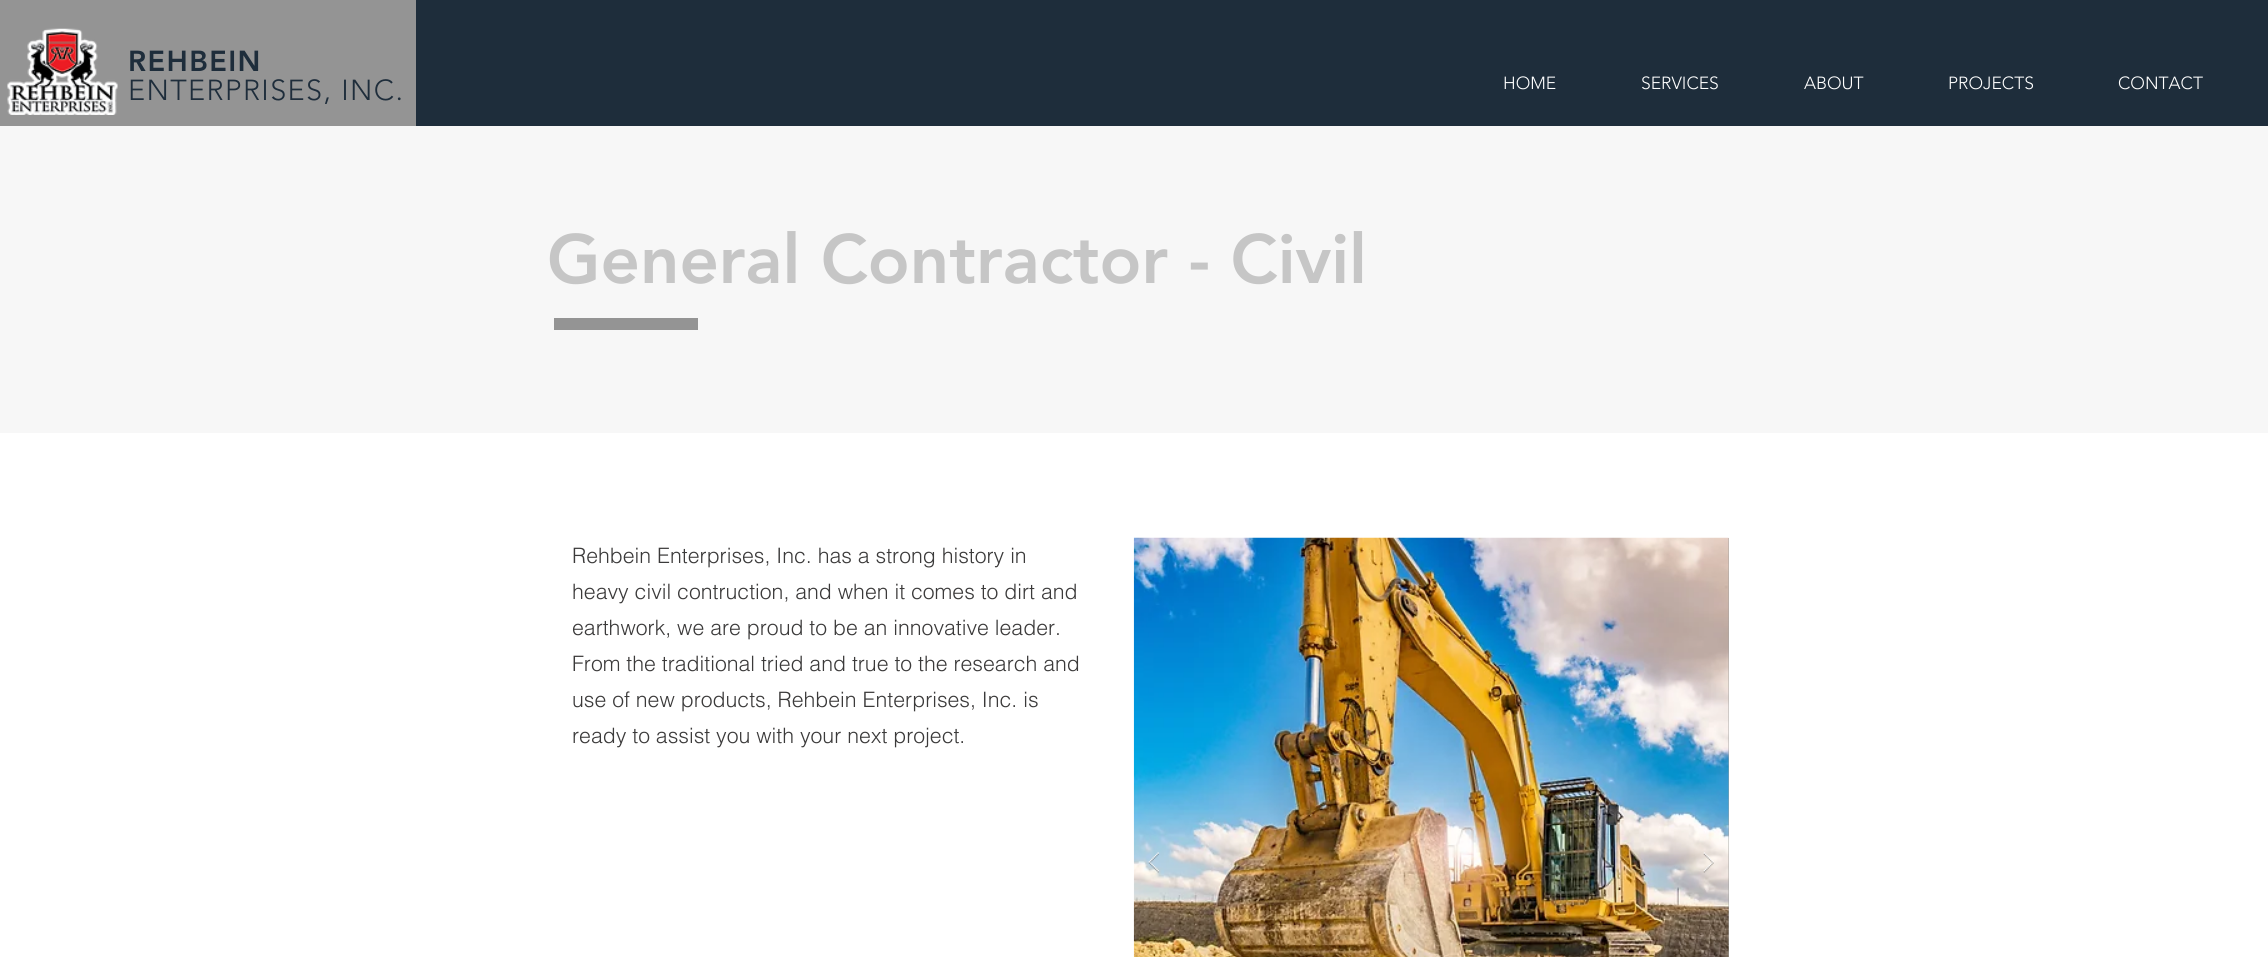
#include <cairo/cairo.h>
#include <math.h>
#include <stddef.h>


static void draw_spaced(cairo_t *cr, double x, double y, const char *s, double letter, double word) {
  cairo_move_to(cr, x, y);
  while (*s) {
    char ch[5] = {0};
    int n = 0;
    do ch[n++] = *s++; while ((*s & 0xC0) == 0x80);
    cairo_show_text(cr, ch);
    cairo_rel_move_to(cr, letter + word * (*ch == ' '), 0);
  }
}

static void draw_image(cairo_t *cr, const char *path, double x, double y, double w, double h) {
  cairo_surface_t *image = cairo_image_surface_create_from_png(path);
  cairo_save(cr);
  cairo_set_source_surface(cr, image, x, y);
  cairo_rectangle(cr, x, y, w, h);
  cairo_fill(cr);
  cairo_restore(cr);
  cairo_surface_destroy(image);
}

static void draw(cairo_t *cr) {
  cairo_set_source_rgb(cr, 247 / 255.0, 247 / 255.0, 247 / 255.0);
  cairo_paint(cr);
  cairo_set_source_rgb(cr, 148 / 255.0, 148 / 255.0, 148 / 255.0);
  cairo_rectangle(cr, 0, 0, 416, 126);
  cairo_fill(cr);
  draw_image(cr, "images/1.png", 7, 28, 111, 87);
  cairo_set_source_rgb(cr, 30 / 255.0, 45 / 255.0, 59 / 255.0);
  cairo_rectangle(cr, 416, 0, 1852, 126);
  cairo_fill(cr);
  cairo_set_source_rgb(cr, 148 / 255.0, 148 / 255.0, 148 / 255.0);
  cairo_rectangle(cr, 554, 318, 144, 12);
  cairo_fill(cr);
  cairo_set_source_rgb(cr, 1, 1, 1);
  cairo_rectangle(cr, 0, 433, 2268, 524);
  cairo_fill(cr);
  cairo_set_source_rgb(cr, 160 / 255.0, 160 / 255.0, 159 / 255.0);
  cairo_rectangle(cr, 1728, 538, 1, 419);
  cairo_fill(cr);
  draw_image(cr, "images/2.png", 1133, 537, 596, 420);
  draw_image(cr, "images/3.png", 1148, 852, 11, 21);
  draw_image(cr, "images/4.png", 1703, 852, 11, 21);
  cairo_select_font_face(cr, "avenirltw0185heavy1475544 Black", CAIRO_FONT_SLANT_NORMAL, CAIRO_FONT_WEIGHT_NORMAL);
  cairo_set_font_size(cr, 28.75);
  cairo_set_source_rgb(cr, 30 / 255.0, 45 / 255.0, 59 / 255.0);
  draw_spaced(cr, 128, 71, "REHBEIN", 1.4, 0);
  cairo_select_font_face(cr, "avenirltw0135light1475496 Light", CAIRO_FONT_SLANT_NORMAL, CAIRO_FONT_WEIGHT_NORMAL);
  draw_spaced(cr, 128, 100, "ENTERPRISES, INC.", 1.4, 0);
  cairo_set_font_size(cr, 17.5);
  cairo_set_source_rgb(cr, 1, 1, 1);
  cairo_move_to(cr, 1503, 89);
  cairo_show_text(cr, "HOME");
  cairo_move_to(cr, 1641, 89);
  cairo_show_text(cr, "SERVICES");
  cairo_move_to(cr, 1804, 89);
  cairo_show_text(cr, "ABOUT");
  cairo_move_to(cr, 1948, 89);
  cairo_show_text(cr, "PROJECTS");
  cairo_move_to(cr, 2118, 89);
  cairo_show_text(cr, "CONTACT");
  cairo_select_font_face(cr, "avenirltw0185heavy1475544 Black", CAIRO_FONT_SLANT_NORMAL, CAIRO_FONT_WEIGHT_NORMAL);
  cairo_set_font_size(cr, 68.75);
  cairo_set_source_rgb(cr, 198 / 255.0, 198 / 255.0, 198 / 255.0);
  cairo_move_to(cr, 547, 283);
  cairo_show_text(cr, "General Contractor - Civil");
  cairo_select_font_face(cr, "helvetica Light", CAIRO_FONT_SLANT_NORMAL, CAIRO_FONT_WEIGHT_NORMAL);
  cairo_set_font_size(cr, 21.25);
  cairo_set_source_rgb(cr, 59 / 255.0, 58 / 255.0, 58 / 255.0);
  cairo_move_to(cr, 572, 563);
  cairo_show_text(cr, "Rehbein Enterprises, Inc. has a strong history in");
  cairo_move_to(cr, 572, 599);
  cairo_show_text(cr, "heavy civil contruction, and when it comes to dirt and");
  cairo_move_to(cr, 572, 635);
  cairo_show_text(cr, "earthwork, we are proud to be an innovative leader.");
  cairo_move_to(cr, 572, 671);
  cairo_show_text(cr, "From the traditional tried and true to the research and");
  cairo_move_to(cr, 572, 707);
  cairo_show_text(cr, "use of new products, Rehbein Enterprises, Inc. is");
  cairo_move_to(cr, 572, 743);
  cairo_show_text(cr, "ready to assist you with your next project.");
}

int main(void) {
  cairo_surface_t *surface = cairo_image_surface_create(CAIRO_FORMAT_RGB24, 2268, 957);
  cairo_t *cr = cairo_create(surface);
  cairo_font_options_t *options = cairo_font_options_create();
  cairo_font_options_set_hint_metrics(options, CAIRO_HINT_METRICS_OFF);
  cairo_font_options_set_hint_style(options, CAIRO_HINT_STYLE_NONE);
  cairo_set_font_options(cr, options);
  cairo_set_miter_limit(cr, 4);
  draw(cr);
  cairo_surface_write_to_png(surface, "out.png");
  cairo_font_options_destroy(options);
  cairo_destroy(cr);
  cairo_surface_destroy(surface);
  return 0;
}
